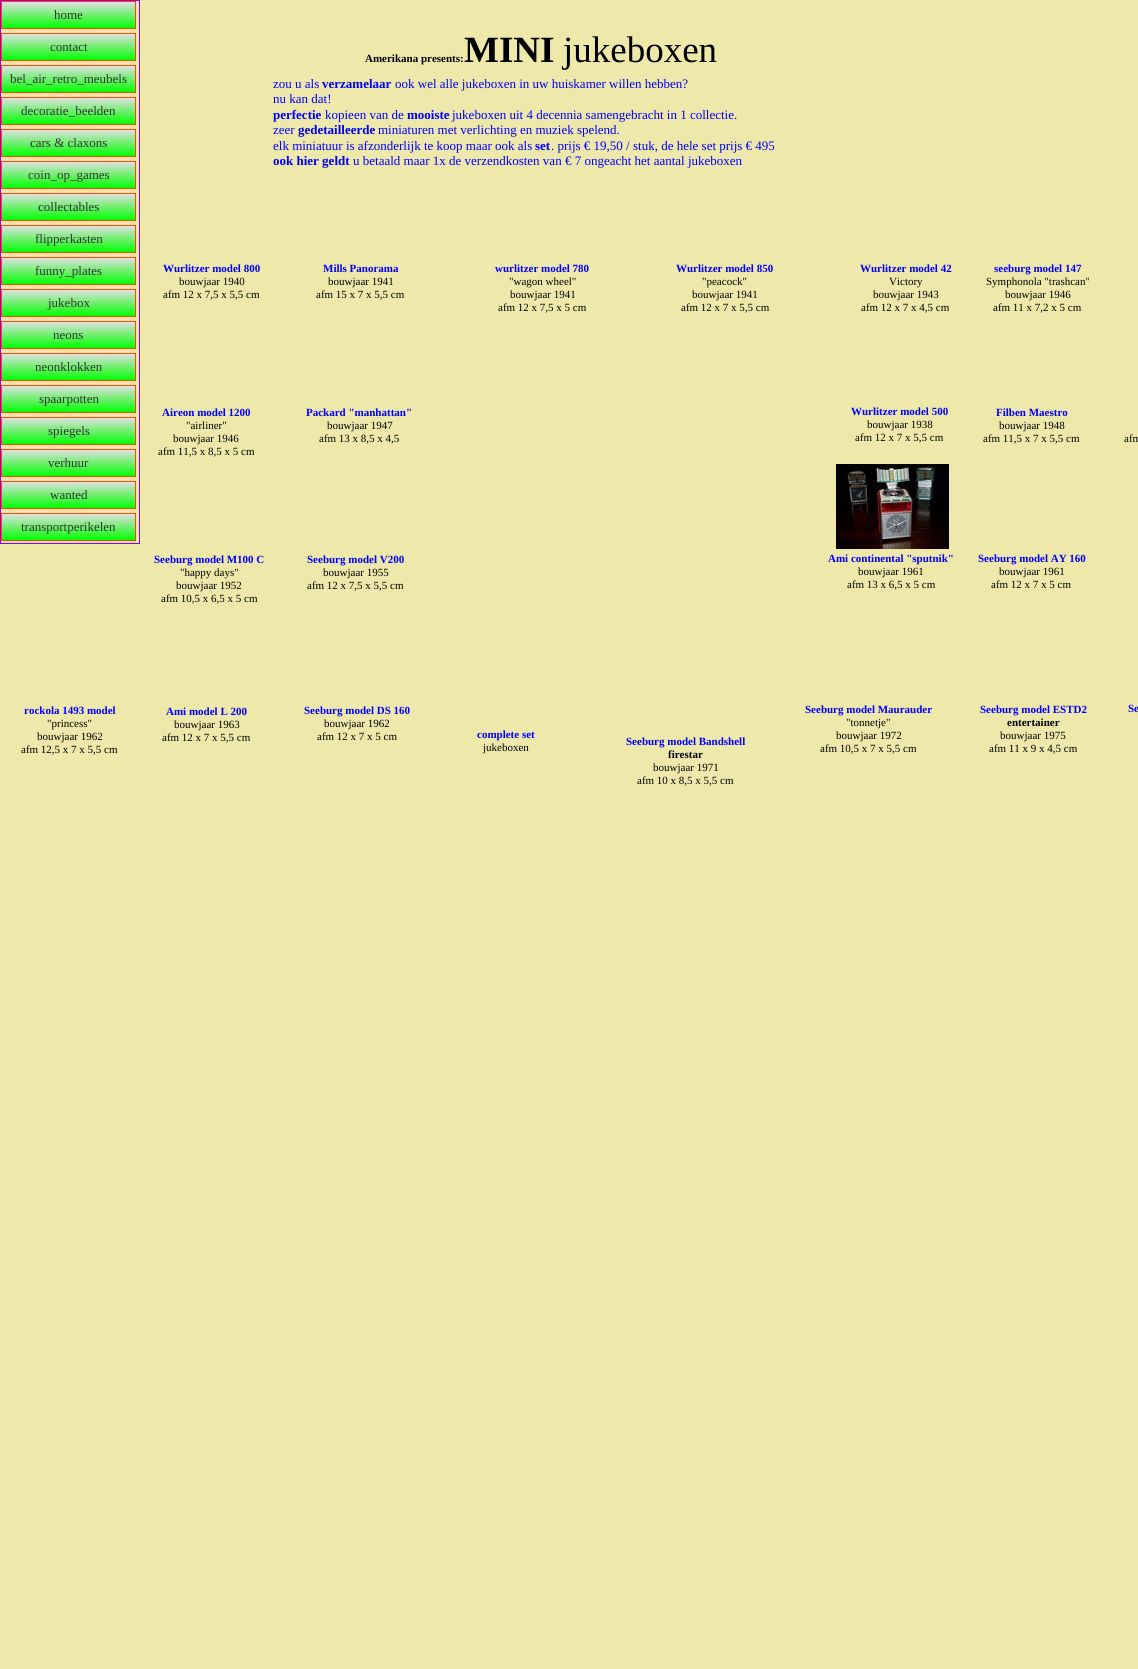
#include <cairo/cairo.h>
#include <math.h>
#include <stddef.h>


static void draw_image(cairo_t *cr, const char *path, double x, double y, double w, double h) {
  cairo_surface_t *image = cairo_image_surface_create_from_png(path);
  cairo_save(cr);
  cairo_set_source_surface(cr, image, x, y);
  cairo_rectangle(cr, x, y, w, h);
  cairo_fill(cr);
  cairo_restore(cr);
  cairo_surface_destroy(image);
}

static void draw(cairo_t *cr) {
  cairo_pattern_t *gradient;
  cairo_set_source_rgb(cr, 238 / 255.0, 232 / 255.0, 170 / 255.0);
  cairo_paint(cr);
  cairo_rectangle(cr, 0.5, 0.5, 139, 543);
  cairo_set_source_rgb(cr, 148 / 255.0, 0, 211 / 255.0);
  cairo_set_line_width(cr, 1);
  cairo_stroke(cr);
  gradient = cairo_pattern_create_linear(69, 28, 69, 2);
  cairo_pattern_add_color_stop_rgba(gradient, 0, 0, 1, 0, 1);
  cairo_pattern_add_color_stop_rgba(gradient, 1, 224 / 255.0, 224 / 255.0, 224 / 255.0, 1);
  cairo_set_source(cr, gradient);
  cairo_pattern_destroy(gradient);
  cairo_rectangle(cr, 2, 2, 133, 26);
  cairo_fill(cr);
  cairo_rectangle(cr, 1.5, 1.5, 134, 27);
  cairo_set_source_rgb(cr, 1, 69 / 255.0, 0);
  cairo_stroke(cr);
  gradient = cairo_pattern_create_linear(69, 60, 69, 34);
  cairo_pattern_add_color_stop_rgba(gradient, 0, 0, 1, 0, 1);
  cairo_pattern_add_color_stop_rgba(gradient, 1, 224 / 255.0, 224 / 255.0, 224 / 255.0, 1);
  cairo_set_source(cr, gradient);
  cairo_pattern_destroy(gradient);
  cairo_rectangle(cr, 2, 34, 133, 26);
  cairo_fill(cr);
  cairo_rectangle(cr, 1.5, 33.5, 134, 27);
  cairo_set_source_rgb(cr, 1, 69 / 255.0, 0);
  cairo_stroke(cr);
  gradient = cairo_pattern_create_linear(69, 92, 69, 66);
  cairo_pattern_add_color_stop_rgba(gradient, 0, 0, 1, 0, 1);
  cairo_pattern_add_color_stop_rgba(gradient, 1, 224 / 255.0, 224 / 255.0, 224 / 255.0, 1);
  cairo_set_source(cr, gradient);
  cairo_pattern_destroy(gradient);
  cairo_rectangle(cr, 2, 66, 133, 26);
  cairo_fill(cr);
  cairo_rectangle(cr, 1.5, 65.5, 134, 27);
  cairo_set_source_rgb(cr, 1, 69 / 255.0, 0);
  cairo_stroke(cr);
  gradient = cairo_pattern_create_linear(69, 124, 69, 98);
  cairo_pattern_add_color_stop_rgba(gradient, 0, 0, 1, 0, 1);
  cairo_pattern_add_color_stop_rgba(gradient, 1, 224 / 255.0, 224 / 255.0, 224 / 255.0, 1);
  cairo_set_source(cr, gradient);
  cairo_pattern_destroy(gradient);
  cairo_rectangle(cr, 2, 98, 133, 26);
  cairo_fill(cr);
  cairo_rectangle(cr, 1.5, 97.5, 134, 27);
  cairo_set_source_rgb(cr, 1, 69 / 255.0, 0);
  cairo_stroke(cr);
  gradient = cairo_pattern_create_linear(69, 156, 69, 130);
  cairo_pattern_add_color_stop_rgba(gradient, 0, 0, 1, 0, 1);
  cairo_pattern_add_color_stop_rgba(gradient, 1, 224 / 255.0, 224 / 255.0, 224 / 255.0, 1);
  cairo_set_source(cr, gradient);
  cairo_pattern_destroy(gradient);
  cairo_rectangle(cr, 2, 130, 133, 26);
  cairo_fill(cr);
  cairo_rectangle(cr, 1.5, 129.5, 134, 27);
  cairo_set_source_rgb(cr, 1, 69 / 255.0, 0);
  cairo_stroke(cr);
  gradient = cairo_pattern_create_linear(69, 188, 69, 162);
  cairo_pattern_add_color_stop_rgba(gradient, 0, 0, 1, 0, 1);
  cairo_pattern_add_color_stop_rgba(gradient, 1, 224 / 255.0, 224 / 255.0, 224 / 255.0, 1);
  cairo_set_source(cr, gradient);
  cairo_pattern_destroy(gradient);
  cairo_rectangle(cr, 2, 162, 133, 26);
  cairo_fill(cr);
  cairo_rectangle(cr, 1.5, 161.5, 134, 27);
  cairo_set_source_rgb(cr, 1, 69 / 255.0, 0);
  cairo_stroke(cr);
  gradient = cairo_pattern_create_linear(69, 220, 69, 194);
  cairo_pattern_add_color_stop_rgba(gradient, 0, 0, 1, 0, 1);
  cairo_pattern_add_color_stop_rgba(gradient, 1, 224 / 255.0, 224 / 255.0, 224 / 255.0, 1);
  cairo_set_source(cr, gradient);
  cairo_pattern_destroy(gradient);
  cairo_rectangle(cr, 2, 194, 133, 26);
  cairo_fill(cr);
  cairo_rectangle(cr, 1.5, 193.5, 134, 27);
  cairo_set_source_rgb(cr, 1, 69 / 255.0, 0);
  cairo_stroke(cr);
  gradient = cairo_pattern_create_linear(69, 252, 69, 226);
  cairo_pattern_add_color_stop_rgba(gradient, 0, 0, 1, 0, 1);
  cairo_pattern_add_color_stop_rgba(gradient, 1, 224 / 255.0, 224 / 255.0, 224 / 255.0, 1);
  cairo_set_source(cr, gradient);
  cairo_pattern_destroy(gradient);
  cairo_rectangle(cr, 2, 226, 133, 26);
  cairo_fill(cr);
  cairo_rectangle(cr, 1.5, 225.5, 134, 27);
  cairo_set_source_rgb(cr, 1, 69 / 255.0, 0);
  cairo_stroke(cr);
  gradient = cairo_pattern_create_linear(69, 284, 69, 258);
  cairo_pattern_add_color_stop_rgba(gradient, 0, 0, 1, 0, 1);
  cairo_pattern_add_color_stop_rgba(gradient, 1, 224 / 255.0, 224 / 255.0, 224 / 255.0, 1);
  cairo_set_source(cr, gradient);
  cairo_pattern_destroy(gradient);
  cairo_rectangle(cr, 2, 258, 133, 26);
  cairo_fill(cr);
  cairo_rectangle(cr, 1.5, 257.5, 134, 27);
  cairo_set_source_rgb(cr, 1, 69 / 255.0, 0);
  cairo_stroke(cr);
  gradient = cairo_pattern_create_linear(69, 316, 69, 290);
  cairo_pattern_add_color_stop_rgba(gradient, 0, 0, 1, 0, 1);
  cairo_pattern_add_color_stop_rgba(gradient, 1, 224 / 255.0, 224 / 255.0, 224 / 255.0, 1);
  cairo_set_source(cr, gradient);
  cairo_pattern_destroy(gradient);
  cairo_rectangle(cr, 2, 290, 133, 26);
  cairo_fill(cr);
  cairo_rectangle(cr, 1.5, 289.5, 134, 27);
  cairo_set_source_rgb(cr, 1, 69 / 255.0, 0);
  cairo_stroke(cr);
  gradient = cairo_pattern_create_linear(69, 348, 69, 322);
  cairo_pattern_add_color_stop_rgba(gradient, 0, 0, 1, 0, 1);
  cairo_pattern_add_color_stop_rgba(gradient, 1, 224 / 255.0, 224 / 255.0, 224 / 255.0, 1);
  cairo_set_source(cr, gradient);
  cairo_pattern_destroy(gradient);
  cairo_rectangle(cr, 2, 322, 133, 26);
  cairo_fill(cr);
  cairo_rectangle(cr, 1.5, 321.5, 134, 27);
  cairo_set_source_rgb(cr, 1, 69 / 255.0, 0);
  cairo_stroke(cr);
  gradient = cairo_pattern_create_linear(69, 380, 69, 354);
  cairo_pattern_add_color_stop_rgba(gradient, 0, 0, 1, 0, 1);
  cairo_pattern_add_color_stop_rgba(gradient, 1, 224 / 255.0, 224 / 255.0, 224 / 255.0, 1);
  cairo_set_source(cr, gradient);
  cairo_pattern_destroy(gradient);
  cairo_rectangle(cr, 2, 354, 133, 26);
  cairo_fill(cr);
  cairo_rectangle(cr, 1.5, 353.5, 134, 27);
  cairo_set_source_rgb(cr, 1, 69 / 255.0, 0);
  cairo_stroke(cr);
  gradient = cairo_pattern_create_linear(69, 412, 69, 386);
  cairo_pattern_add_color_stop_rgba(gradient, 0, 0, 1, 0, 1);
  cairo_pattern_add_color_stop_rgba(gradient, 1, 224 / 255.0, 224 / 255.0, 224 / 255.0, 1);
  cairo_set_source(cr, gradient);
  cairo_pattern_destroy(gradient);
  cairo_rectangle(cr, 2, 386, 133, 26);
  cairo_fill(cr);
  cairo_rectangle(cr, 1.5, 385.5, 134, 27);
  cairo_set_source_rgb(cr, 1, 69 / 255.0, 0);
  cairo_stroke(cr);
  gradient = cairo_pattern_create_linear(69, 444, 69, 418);
  cairo_pattern_add_color_stop_rgba(gradient, 0, 0, 1, 0, 1);
  cairo_pattern_add_color_stop_rgba(gradient, 1, 224 / 255.0, 224 / 255.0, 224 / 255.0, 1);
  cairo_set_source(cr, gradient);
  cairo_pattern_destroy(gradient);
  cairo_rectangle(cr, 2, 418, 133, 26);
  cairo_fill(cr);
  cairo_rectangle(cr, 1.5, 417.5, 134, 27);
  cairo_set_source_rgb(cr, 1, 69 / 255.0, 0);
  cairo_stroke(cr);
  gradient = cairo_pattern_create_linear(69, 476, 69, 450);
  cairo_pattern_add_color_stop_rgba(gradient, 0, 0, 1, 0, 1);
  cairo_pattern_add_color_stop_rgba(gradient, 1, 224 / 255.0, 224 / 255.0, 224 / 255.0, 1);
  cairo_set_source(cr, gradient);
  cairo_pattern_destroy(gradient);
  cairo_rectangle(cr, 2, 450, 133, 26);
  cairo_fill(cr);
  cairo_rectangle(cr, 1.5, 449.5, 134, 27);
  cairo_set_source_rgb(cr, 1, 69 / 255.0, 0);
  cairo_stroke(cr);
  gradient = cairo_pattern_create_linear(69, 508, 69, 482);
  cairo_pattern_add_color_stop_rgba(gradient, 0, 0, 1, 0, 1);
  cairo_pattern_add_color_stop_rgba(gradient, 1, 224 / 255.0, 224 / 255.0, 224 / 255.0, 1);
  cairo_set_source(cr, gradient);
  cairo_pattern_destroy(gradient);
  cairo_rectangle(cr, 2, 482, 133, 26);
  cairo_fill(cr);
  cairo_rectangle(cr, 1.5, 481.5, 134, 27);
  cairo_set_source_rgb(cr, 1, 69 / 255.0, 0);
  cairo_stroke(cr);
  gradient = cairo_pattern_create_linear(69, 540, 69, 514);
  cairo_pattern_add_color_stop_rgba(gradient, 0, 0, 1, 0, 1);
  cairo_pattern_add_color_stop_rgba(gradient, 1, 224 / 255.0, 224 / 255.0, 224 / 255.0, 1);
  cairo_set_source(cr, gradient);
  cairo_pattern_destroy(gradient);
  cairo_rectangle(cr, 2, 514, 133, 26);
  cairo_fill(cr);
  cairo_rectangle(cr, 1.5, 513.5, 134, 27);
  cairo_set_source_rgb(cr, 1, 69 / 255.0, 0);
  cairo_stroke(cr);
  draw_image(cr, "images/1.png", 836, 464, 113, 85);
  cairo_select_font_face(cr, "Liberation Serif", CAIRO_FONT_SLANT_NORMAL, CAIRO_FONT_WEIGHT_NORMAL);
  cairo_set_font_size(cr, 13);
  cairo_set_source_rgb(cr, 51 / 255.0, 51 / 255.0, 51 / 255.0);
  cairo_move_to(cr, 54, 19);
  cairo_show_text(cr, "home");
  cairo_move_to(cr, 50, 51);
  cairo_show_text(cr, "contact");
  cairo_move_to(cr, 10, 83);
  cairo_show_text(cr, "bel_air_retro_meubels");
  cairo_move_to(cr, 21, 115);
  cairo_show_text(cr, "decoratie_beelden");
  cairo_move_to(cr, 30, 147);
  cairo_show_text(cr, "cars & claxons");
  cairo_move_to(cr, 28, 179);
  cairo_show_text(cr, "coin_op_games");
  cairo_move_to(cr, 38, 211);
  cairo_show_text(cr, "collectables");
  cairo_move_to(cr, 35, 243);
  cairo_show_text(cr, "flipperkasten");
  cairo_move_to(cr, 35, 275);
  cairo_show_text(cr, "funny_plates");
  cairo_move_to(cr, 48, 307);
  cairo_show_text(cr, "jukebox");
  cairo_move_to(cr, 53, 339);
  cairo_show_text(cr, "neons");
  cairo_move_to(cr, 35, 371);
  cairo_show_text(cr, "neonklokken");
  cairo_move_to(cr, 39, 403);
  cairo_show_text(cr, "spaarpotten");
  cairo_move_to(cr, 48, 435);
  cairo_show_text(cr, "spiegels");
  cairo_move_to(cr, 48, 467);
  cairo_show_text(cr, "verhuur");
  cairo_move_to(cr, 50, 499);
  cairo_show_text(cr, "wanted");
  cairo_move_to(cr, 21, 531);
  cairo_show_text(cr, "transportperikelen");
  cairo_select_font_face(cr, "Liberation Serif", CAIRO_FONT_SLANT_NORMAL, CAIRO_FONT_WEIGHT_BOLD);
  cairo_set_font_size(cr, 11);
  cairo_set_source_rgb(cr, 0, 0, 0);
  cairo_move_to(cr, 365, 62);
  cairo_show_text(cr, "Amerikana presents:");
  cairo_set_font_size(cr, 37);
  cairo_move_to(cr, 464, 62);
  cairo_show_text(cr, "MINI");
  cairo_select_font_face(cr, "Liberation Serif", CAIRO_FONT_SLANT_NORMAL, CAIRO_FONT_WEIGHT_NORMAL);
  cairo_move_to(cr, 563, 62);
  cairo_show_text(cr, "jukeboxen");
  cairo_set_font_size(cr, 13);
  cairo_set_source_rgb(cr, 0, 0, 1);
  cairo_move_to(cr, 273, 88);
  cairo_show_text(cr, "zou u als");
  cairo_select_font_face(cr, "Liberation Serif", CAIRO_FONT_SLANT_NORMAL, CAIRO_FONT_WEIGHT_BOLD);
  cairo_move_to(cr, 322, 88);
  cairo_show_text(cr, "verzamelaar");
  cairo_select_font_face(cr, "Liberation Serif", CAIRO_FONT_SLANT_NORMAL, CAIRO_FONT_WEIGHT_NORMAL);
  cairo_move_to(cr, 395, 88);
  cairo_show_text(cr, "ook wel alle jukeboxen in uw huiskamer willen hebben?");
  cairo_move_to(cr, 273, 103);
  cairo_show_text(cr, "nu kan dat!");
  cairo_select_font_face(cr, "Liberation Serif", CAIRO_FONT_SLANT_NORMAL, CAIRO_FONT_WEIGHT_BOLD);
  cairo_move_to(cr, 273, 119);
  cairo_show_text(cr, "perfectie");
  cairo_select_font_face(cr, "Liberation Serif", CAIRO_FONT_SLANT_NORMAL, CAIRO_FONT_WEIGHT_NORMAL);
  cairo_move_to(cr, 325, 119);
  cairo_show_text(cr, "kopieen van de");
  cairo_select_font_face(cr, "Liberation Serif", CAIRO_FONT_SLANT_NORMAL, CAIRO_FONT_WEIGHT_BOLD);
  cairo_move_to(cr, 407, 119);
  cairo_show_text(cr, "mooiste");
  cairo_select_font_face(cr, "Liberation Serif", CAIRO_FONT_SLANT_NORMAL, CAIRO_FONT_WEIGHT_NORMAL);
  cairo_move_to(cr, 452, 119);
  cairo_show_text(cr, "jukeboxen uit 4 decennia samengebracht in 1 collectie.");
  cairo_move_to(cr, 273, 134);
  cairo_show_text(cr, "zeer");
  cairo_select_font_face(cr, "Liberation Serif", CAIRO_FONT_SLANT_NORMAL, CAIRO_FONT_WEIGHT_BOLD);
  cairo_move_to(cr, 298, 134);
  cairo_show_text(cr, "gedetailleerde");
  cairo_select_font_face(cr, "Liberation Serif", CAIRO_FONT_SLANT_NORMAL, CAIRO_FONT_WEIGHT_NORMAL);
  cairo_move_to(cr, 378, 134);
  cairo_show_text(cr, "miniaturen met verlichting en muziek spelend.");
  cairo_move_to(cr, 273, 150);
  cairo_show_text(cr, "elk miniatuur is afzonderlijk te koop maar ook als");
  cairo_select_font_face(cr, "Liberation Serif", CAIRO_FONT_SLANT_NORMAL, CAIRO_FONT_WEIGHT_BOLD);
  cairo_move_to(cr, 535, 150);
  cairo_show_text(cr, "set");
  cairo_select_font_face(cr, "Liberation Serif", CAIRO_FONT_SLANT_NORMAL, CAIRO_FONT_WEIGHT_NORMAL);
  cairo_move_to(cr, 551, 150);
  cairo_show_text(cr, ". prijs € 19,50 / stuk, de hele set prijs € 495");
  cairo_select_font_face(cr, "Liberation Serif", CAIRO_FONT_SLANT_NORMAL, CAIRO_FONT_WEIGHT_BOLD);
  cairo_move_to(cr, 273, 165);
  cairo_show_text(cr, "ook hier geldt");
  cairo_select_font_face(cr, "Liberation Serif", CAIRO_FONT_SLANT_NORMAL, CAIRO_FONT_WEIGHT_NORMAL);
  cairo_move_to(cr, 353, 165);
  cairo_show_text(cr, "u betaald maar 1x de verzendkosten van € 7 ongeacht het aantal jukeboxen");
  cairo_select_font_face(cr, "Liberation Serif", CAIRO_FONT_SLANT_NORMAL, CAIRO_FONT_WEIGHT_BOLD);
  cairo_set_font_size(cr, 11);
  cairo_move_to(cr, 163, 272);
  cairo_show_text(cr, "Wurlitzer model 800");
  cairo_select_font_face(cr, "Liberation Serif", CAIRO_FONT_SLANT_NORMAL, CAIRO_FONT_WEIGHT_NORMAL);
  cairo_set_source_rgb(cr, 0, 0, 0);
  cairo_move_to(cr, 179, 285);
  cairo_show_text(cr, "bouwjaar 1940");
  cairo_move_to(cr, 163, 298);
  cairo_show_text(cr, "afm 12 x 7,5 x 5,5 cm");
  cairo_select_font_face(cr, "Liberation Serif", CAIRO_FONT_SLANT_NORMAL, CAIRO_FONT_WEIGHT_BOLD);
  cairo_set_source_rgb(cr, 0, 0, 1);
  cairo_move_to(cr, 323, 272);
  cairo_show_text(cr, "Mills Panorama");
  cairo_select_font_face(cr, "Liberation Serif", CAIRO_FONT_SLANT_NORMAL, CAIRO_FONT_WEIGHT_NORMAL);
  cairo_set_source_rgb(cr, 0, 0, 0);
  cairo_move_to(cr, 328, 285);
  cairo_show_text(cr, "bouwjaar 1941");
  cairo_move_to(cr, 316, 298);
  cairo_show_text(cr, "afm 15 x 7 x 5,5 cm");
  cairo_select_font_face(cr, "Liberation Serif", CAIRO_FONT_SLANT_NORMAL, CAIRO_FONT_WEIGHT_BOLD);
  cairo_set_source_rgb(cr, 0, 0, 1);
  cairo_move_to(cr, 495, 272);
  cairo_show_text(cr, "wurlitzer model 780");
  cairo_select_font_face(cr, "Liberation Serif", CAIRO_FONT_SLANT_NORMAL, CAIRO_FONT_WEIGHT_NORMAL);
  cairo_set_source_rgb(cr, 0, 0, 0);
  cairo_move_to(cr, 509, 285);
  cairo_show_text(cr, "\"wagon wheel\"");
  cairo_move_to(cr, 510, 298);
  cairo_show_text(cr, "bouwjaar 1941");
  cairo_move_to(cr, 498, 311);
  cairo_show_text(cr, "afm 12 x 7,5 x 5 cm");
  cairo_select_font_face(cr, "Liberation Serif", CAIRO_FONT_SLANT_NORMAL, CAIRO_FONT_WEIGHT_BOLD);
  cairo_set_source_rgb(cr, 0, 0, 1);
  cairo_move_to(cr, 676, 272);
  cairo_show_text(cr, "Wurlitzer model 850");
  cairo_select_font_face(cr, "Liberation Serif", CAIRO_FONT_SLANT_NORMAL, CAIRO_FONT_WEIGHT_NORMAL);
  cairo_set_source_rgb(cr, 0, 0, 0);
  cairo_move_to(cr, 702, 285);
  cairo_show_text(cr, "\"peacock\"");
  cairo_move_to(cr, 692, 298);
  cairo_show_text(cr, "bouwjaar 1941");
  cairo_move_to(cr, 681, 311);
  cairo_show_text(cr, "afm 12 x 7 x 5,5 cm");
  cairo_select_font_face(cr, "Liberation Serif", CAIRO_FONT_SLANT_NORMAL, CAIRO_FONT_WEIGHT_BOLD);
  cairo_set_source_rgb(cr, 0, 0, 1);
  cairo_move_to(cr, 860, 272);
  cairo_show_text(cr, "Wurlitzer model 42");
  cairo_select_font_face(cr, "Liberation Serif", CAIRO_FONT_SLANT_NORMAL, CAIRO_FONT_WEIGHT_NORMAL);
  cairo_set_source_rgb(cr, 0, 0, 0);
  cairo_move_to(cr, 889, 285);
  cairo_show_text(cr, "Victory");
  cairo_move_to(cr, 873, 298);
  cairo_show_text(cr, "bouwjaar 1943");
  cairo_move_to(cr, 861, 311);
  cairo_show_text(cr, "afm 12 x 7 x 4,5 cm");
  cairo_select_font_face(cr, "Liberation Serif", CAIRO_FONT_SLANT_NORMAL, CAIRO_FONT_WEIGHT_BOLD);
  cairo_set_source_rgb(cr, 0, 0, 1);
  cairo_move_to(cr, 994, 272);
  cairo_show_text(cr, "seeburg model 147");
  cairo_select_font_face(cr, "Liberation Serif", CAIRO_FONT_SLANT_NORMAL, CAIRO_FONT_WEIGHT_NORMAL);
  cairo_set_source_rgb(cr, 0, 0, 0);
  cairo_move_to(cr, 986, 285);
  cairo_show_text(cr, "Symphonola \"trashcan\"");
  cairo_move_to(cr, 1005, 298);
  cairo_show_text(cr, "bouwjaar 1946");
  cairo_move_to(cr, 993, 311);
  cairo_show_text(cr, "afm 11 x 7,2 x 5 cm");
  cairo_select_font_face(cr, "Liberation Serif", CAIRO_FONT_SLANT_NORMAL, CAIRO_FONT_WEIGHT_BOLD);
  cairo_set_source_rgb(cr, 0, 0, 1);
  cairo_move_to(cr, 162, 416);
  cairo_show_text(cr, "Aireon model 1200");
  cairo_select_font_face(cr, "Liberation Serif", CAIRO_FONT_SLANT_NORMAL, CAIRO_FONT_WEIGHT_NORMAL);
  cairo_set_source_rgb(cr, 0, 0, 0);
  cairo_move_to(cr, 186, 429);
  cairo_show_text(cr, "\"airliner\"");
  cairo_move_to(cr, 173, 442);
  cairo_show_text(cr, "bouwjaar 1946");
  cairo_move_to(cr, 158, 455);
  cairo_show_text(cr, "afm 11,5 x 8,5 x 5 cm");
  cairo_select_font_face(cr, "Liberation Serif", CAIRO_FONT_SLANT_NORMAL, CAIRO_FONT_WEIGHT_BOLD);
  cairo_set_source_rgb(cr, 0, 0, 1);
  cairo_move_to(cr, 306, 416);
  cairo_show_text(cr, "Packard \"manhattan\"");
  cairo_select_font_face(cr, "Liberation Serif", CAIRO_FONT_SLANT_NORMAL, CAIRO_FONT_WEIGHT_NORMAL);
  cairo_set_source_rgb(cr, 0, 0, 0);
  cairo_move_to(cr, 327, 429);
  cairo_show_text(cr, "bouwjaar 1947");
  cairo_move_to(cr, 319, 442);
  cairo_show_text(cr, "afm 13 x 8,5 x 4,5");
  cairo_select_font_face(cr, "Liberation Serif", CAIRO_FONT_SLANT_NORMAL, CAIRO_FONT_WEIGHT_BOLD);
  cairo_set_source_rgb(cr, 0, 0, 1);
  cairo_move_to(cr, 851, 415);
  cairo_show_text(cr, "Wurlitzer model 500");
  cairo_select_font_face(cr, "Liberation Serif", CAIRO_FONT_SLANT_NORMAL, CAIRO_FONT_WEIGHT_NORMAL);
  cairo_set_source_rgb(cr, 0, 0, 0);
  cairo_move_to(cr, 867, 428);
  cairo_show_text(cr, "bouwjaar 1938");
  cairo_move_to(cr, 855, 441);
  cairo_show_text(cr, "afm 12 x 7 x 5,5 cm");
  cairo_select_font_face(cr, "Liberation Serif", CAIRO_FONT_SLANT_NORMAL, CAIRO_FONT_WEIGHT_BOLD);
  cairo_set_source_rgb(cr, 0, 0, 1);
  cairo_move_to(cr, 996, 416);
  cairo_show_text(cr, "Filben Maestro");
  cairo_select_font_face(cr, "Liberation Serif", CAIRO_FONT_SLANT_NORMAL, CAIRO_FONT_WEIGHT_NORMAL);
  cairo_set_source_rgb(cr, 0, 0, 0);
  cairo_move_to(cr, 999, 429);
  cairo_show_text(cr, "bouwjaar 1948");
  cairo_move_to(cr, 983, 442);
  cairo_show_text(cr, "afm 11,5 x 7 x 5,5 cm");
  cairo_move_to(cr, 1124, 442);
  cairo_show_text(cr, "afm");
  cairo_select_font_face(cr, "Liberation Serif", CAIRO_FONT_SLANT_NORMAL, CAIRO_FONT_WEIGHT_BOLD);
  cairo_set_source_rgb(cr, 0, 0, 1);
  cairo_move_to(cr, 154, 563);
  cairo_show_text(cr, "Seeburg model M100 C");
  cairo_select_font_face(cr, "Liberation Serif", CAIRO_FONT_SLANT_NORMAL, CAIRO_FONT_WEIGHT_NORMAL);
  cairo_set_source_rgb(cr, 0, 0, 0);
  cairo_move_to(cr, 180, 576);
  cairo_show_text(cr, "\"happy days\"");
  cairo_move_to(cr, 176, 589);
  cairo_show_text(cr, "bouwjaar 1952");
  cairo_move_to(cr, 161, 602);
  cairo_show_text(cr, "afm 10,5 x 6,5 x 5 cm");
  cairo_select_font_face(cr, "Liberation Serif", CAIRO_FONT_SLANT_NORMAL, CAIRO_FONT_WEIGHT_BOLD);
  cairo_set_source_rgb(cr, 0, 0, 1);
  cairo_move_to(cr, 307, 563);
  cairo_show_text(cr, "Seeburg model V200");
  cairo_select_font_face(cr, "Liberation Serif", CAIRO_FONT_SLANT_NORMAL, CAIRO_FONT_WEIGHT_NORMAL);
  cairo_set_source_rgb(cr, 0, 0, 0);
  cairo_move_to(cr, 323, 576);
  cairo_show_text(cr, "bouwjaar 1955");
  cairo_move_to(cr, 307, 589);
  cairo_show_text(cr, "afm 12 x 7,5 x 5,5 cm");
  cairo_select_font_face(cr, "Liberation Serif", CAIRO_FONT_SLANT_NORMAL, CAIRO_FONT_WEIGHT_BOLD);
  cairo_set_source_rgb(cr, 0, 0, 1);
  cairo_move_to(cr, 828, 562);
  cairo_show_text(cr, "Ami continental \"sputnik\"");
  cairo_select_font_face(cr, "Liberation Serif", CAIRO_FONT_SLANT_NORMAL, CAIRO_FONT_WEIGHT_NORMAL);
  cairo_set_source_rgb(cr, 0, 0, 0);
  cairo_move_to(cr, 858, 575);
  cairo_show_text(cr, "bouwjaar 1961");
  cairo_move_to(cr, 847, 588);
  cairo_show_text(cr, "afm 13 x 6,5 x 5 cm");
  cairo_select_font_face(cr, "Liberation Serif", CAIRO_FONT_SLANT_NORMAL, CAIRO_FONT_WEIGHT_BOLD);
  cairo_set_source_rgb(cr, 0, 0, 1);
  cairo_move_to(cr, 978, 562);
  cairo_show_text(cr, "Seeburg model AY 160");
  cairo_select_font_face(cr, "Liberation Serif", CAIRO_FONT_SLANT_NORMAL, CAIRO_FONT_WEIGHT_NORMAL);
  cairo_set_source_rgb(cr, 0, 0, 0);
  cairo_move_to(cr, 999, 575);
  cairo_show_text(cr, "bouwjaar 1961");
  cairo_move_to(cr, 991, 588);
  cairo_show_text(cr, "afm 12 x 7 x 5 cm");
  cairo_select_font_face(cr, "Liberation Serif", CAIRO_FONT_SLANT_NORMAL, CAIRO_FONT_WEIGHT_BOLD);
  cairo_set_source_rgb(cr, 0, 0, 1);
  cairo_move_to(cr, 24, 714);
  cairo_show_text(cr, "rockola 1493 model");
  cairo_select_font_face(cr, "Liberation Serif", CAIRO_FONT_SLANT_NORMAL, CAIRO_FONT_WEIGHT_NORMAL);
  cairo_set_source_rgb(cr, 0, 0, 0);
  cairo_move_to(cr, 47, 727);
  cairo_show_text(cr, "\"princess\"");
  cairo_move_to(cr, 37, 740);
  cairo_show_text(cr, "bouwjaar 1962");
  cairo_move_to(cr, 21, 753);
  cairo_show_text(cr, "afm 12,5 x 7 x 5,5 cm");
  cairo_select_font_face(cr, "Liberation Serif", CAIRO_FONT_SLANT_NORMAL, CAIRO_FONT_WEIGHT_BOLD);
  cairo_set_source_rgb(cr, 0, 0, 1);
  cairo_move_to(cr, 166, 715);
  cairo_show_text(cr, "Ami model L 200");
  cairo_select_font_face(cr, "Liberation Serif", CAIRO_FONT_SLANT_NORMAL, CAIRO_FONT_WEIGHT_NORMAL);
  cairo_set_source_rgb(cr, 0, 0, 0);
  cairo_move_to(cr, 174, 728);
  cairo_show_text(cr, "bouwjaar 1963");
  cairo_move_to(cr, 162, 741);
  cairo_show_text(cr, "afm 12 x 7 x 5,5 cm");
  cairo_select_font_face(cr, "Liberation Serif", CAIRO_FONT_SLANT_NORMAL, CAIRO_FONT_WEIGHT_BOLD);
  cairo_set_source_rgb(cr, 0, 0, 1);
  cairo_move_to(cr, 304, 714);
  cairo_show_text(cr, "Seeburg model DS 160");
  cairo_select_font_face(cr, "Liberation Serif", CAIRO_FONT_SLANT_NORMAL, CAIRO_FONT_WEIGHT_NORMAL);
  cairo_set_source_rgb(cr, 0, 0, 0);
  cairo_move_to(cr, 324, 727);
  cairo_show_text(cr, "bouwjaar 1962");
  cairo_move_to(cr, 317, 740);
  cairo_show_text(cr, "afm 12 x 7 x 5 cm");
  cairo_select_font_face(cr, "Liberation Serif", CAIRO_FONT_SLANT_NORMAL, CAIRO_FONT_WEIGHT_BOLD);
  cairo_set_source_rgb(cr, 0, 0, 1);
  cairo_move_to(cr, 477, 738);
  cairo_show_text(cr, "complete set");
  cairo_select_font_face(cr, "Liberation Serif", CAIRO_FONT_SLANT_NORMAL, CAIRO_FONT_WEIGHT_NORMAL);
  cairo_set_source_rgb(cr, 0, 0, 0);
  cairo_move_to(cr, 483, 751);
  cairo_show_text(cr, "jukeboxen");
  cairo_select_font_face(cr, "Liberation Serif", CAIRO_FONT_SLANT_NORMAL, CAIRO_FONT_WEIGHT_BOLD);
  cairo_set_source_rgb(cr, 0, 0, 1);
  cairo_move_to(cr, 626, 745);
  cairo_show_text(cr, "Seeburg model Bandshell");
  cairo_set_source_rgb(cr, 0, 0, 0);
  cairo_move_to(cr, 668, 758);
  cairo_show_text(cr, "firestar");
  cairo_select_font_face(cr, "Liberation Serif", CAIRO_FONT_SLANT_NORMAL, CAIRO_FONT_WEIGHT_NORMAL);
  cairo_move_to(cr, 653, 771);
  cairo_show_text(cr, "bouwjaar 1971");
  cairo_move_to(cr, 637, 784);
  cairo_show_text(cr, "afm 10 x 8,5 x 5,5 cm");
  cairo_select_font_face(cr, "Liberation Serif", CAIRO_FONT_SLANT_NORMAL, CAIRO_FONT_WEIGHT_BOLD);
  cairo_set_source_rgb(cr, 0, 0, 1);
  cairo_move_to(cr, 805, 713);
  cairo_show_text(cr, "Seeburg model Maurauder");
  cairo_select_font_face(cr, "Liberation Serif", CAIRO_FONT_SLANT_NORMAL, CAIRO_FONT_WEIGHT_NORMAL);
  cairo_set_source_rgb(cr, 0, 0, 0);
  cairo_move_to(cr, 846, 726);
  cairo_show_text(cr, "\"tonnetje\"");
  cairo_move_to(cr, 836, 739);
  cairo_show_text(cr, "bouwjaar 1972");
  cairo_move_to(cr, 820, 752);
  cairo_show_text(cr, "afm 10,5 x 7 x 5,5 cm");
  cairo_select_font_face(cr, "Liberation Serif", CAIRO_FONT_SLANT_NORMAL, CAIRO_FONT_WEIGHT_BOLD);
  cairo_set_source_rgb(cr, 0, 0, 1);
  cairo_move_to(cr, 980, 713);
  cairo_show_text(cr, "Seeburg model ESTD2");
  cairo_set_source_rgb(cr, 0, 0, 0);
  cairo_move_to(cr, 1007, 726);
  cairo_show_text(cr, "entertainer");
  cairo_select_font_face(cr, "Liberation Serif", CAIRO_FONT_SLANT_NORMAL, CAIRO_FONT_WEIGHT_NORMAL);
  cairo_move_to(cr, 1000, 739);
  cairo_show_text(cr, "bouwjaar 1975");
  cairo_move_to(cr, 989, 752);
  cairo_show_text(cr, "afm 11 x 9 x 4,5 cm");
  cairo_select_font_face(cr, "Liberation Serif", CAIRO_FONT_SLANT_NORMAL, CAIRO_FONT_WEIGHT_BOLD);
  cairo_set_source_rgb(cr, 0, 0, 1);
  cairo_move_to(cr, 1128, 712);
  cairo_show_text(cr, "Se");
}

int main(void) {
  cairo_surface_t *surface = cairo_image_surface_create(CAIRO_FORMAT_RGB24, 1138, 1669);
  cairo_t *cr = cairo_create(surface);
  cairo_font_options_t *options = cairo_font_options_create();
  cairo_font_options_set_hint_metrics(options, CAIRO_HINT_METRICS_OFF);
  cairo_font_options_set_hint_style(options, CAIRO_HINT_STYLE_NONE);
  cairo_set_font_options(cr, options);
  cairo_set_miter_limit(cr, 4);
  draw(cr);
  cairo_surface_write_to_png(surface, "out.png");
  cairo_font_options_destroy(options);
  cairo_destroy(cr);
  cairo_surface_destroy(surface);
  return 0;
}
